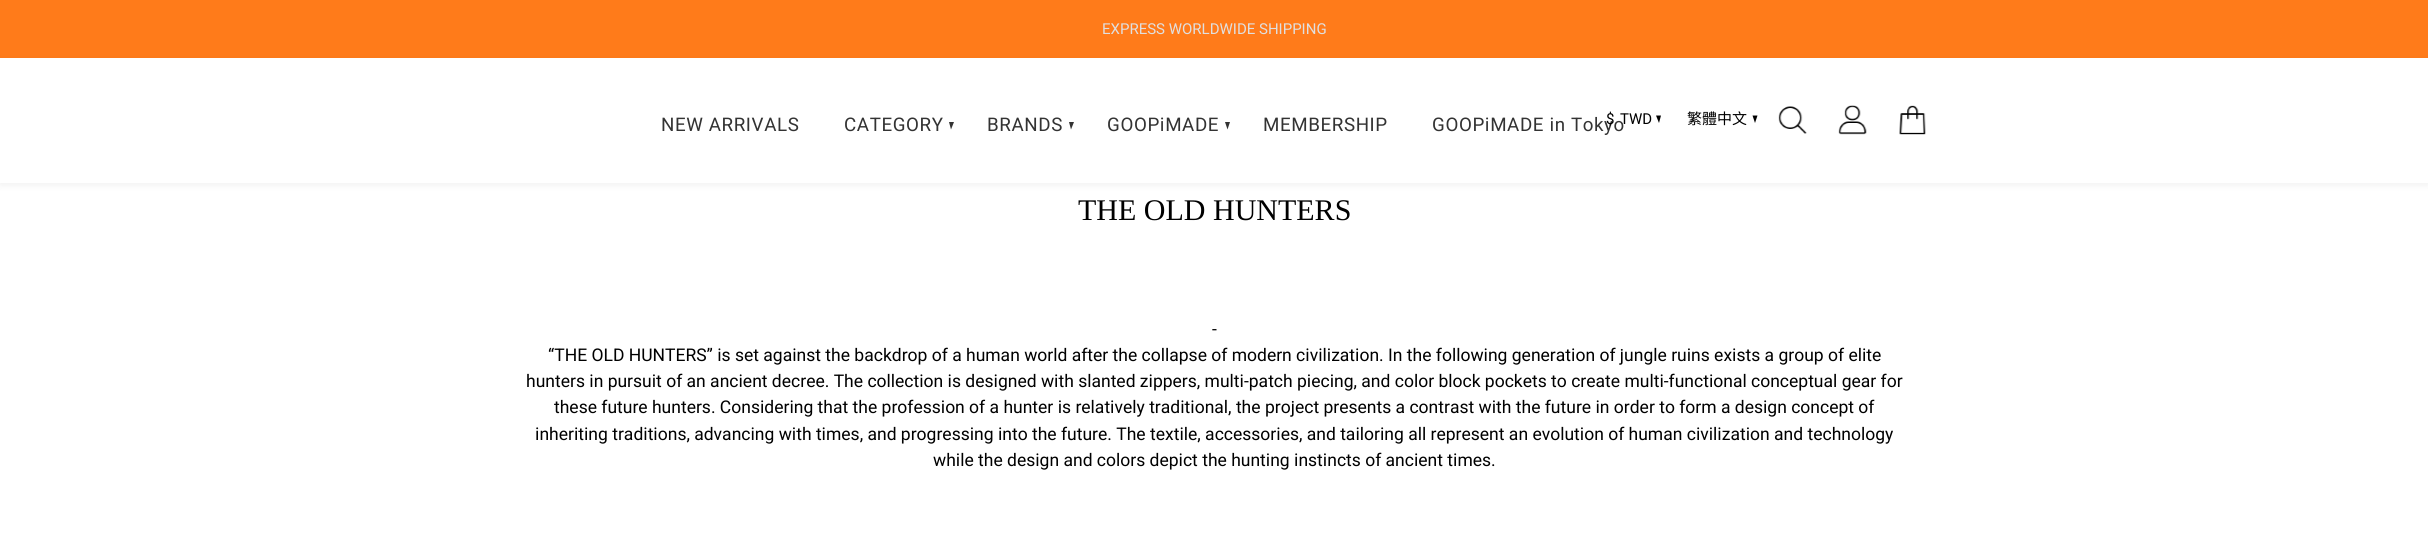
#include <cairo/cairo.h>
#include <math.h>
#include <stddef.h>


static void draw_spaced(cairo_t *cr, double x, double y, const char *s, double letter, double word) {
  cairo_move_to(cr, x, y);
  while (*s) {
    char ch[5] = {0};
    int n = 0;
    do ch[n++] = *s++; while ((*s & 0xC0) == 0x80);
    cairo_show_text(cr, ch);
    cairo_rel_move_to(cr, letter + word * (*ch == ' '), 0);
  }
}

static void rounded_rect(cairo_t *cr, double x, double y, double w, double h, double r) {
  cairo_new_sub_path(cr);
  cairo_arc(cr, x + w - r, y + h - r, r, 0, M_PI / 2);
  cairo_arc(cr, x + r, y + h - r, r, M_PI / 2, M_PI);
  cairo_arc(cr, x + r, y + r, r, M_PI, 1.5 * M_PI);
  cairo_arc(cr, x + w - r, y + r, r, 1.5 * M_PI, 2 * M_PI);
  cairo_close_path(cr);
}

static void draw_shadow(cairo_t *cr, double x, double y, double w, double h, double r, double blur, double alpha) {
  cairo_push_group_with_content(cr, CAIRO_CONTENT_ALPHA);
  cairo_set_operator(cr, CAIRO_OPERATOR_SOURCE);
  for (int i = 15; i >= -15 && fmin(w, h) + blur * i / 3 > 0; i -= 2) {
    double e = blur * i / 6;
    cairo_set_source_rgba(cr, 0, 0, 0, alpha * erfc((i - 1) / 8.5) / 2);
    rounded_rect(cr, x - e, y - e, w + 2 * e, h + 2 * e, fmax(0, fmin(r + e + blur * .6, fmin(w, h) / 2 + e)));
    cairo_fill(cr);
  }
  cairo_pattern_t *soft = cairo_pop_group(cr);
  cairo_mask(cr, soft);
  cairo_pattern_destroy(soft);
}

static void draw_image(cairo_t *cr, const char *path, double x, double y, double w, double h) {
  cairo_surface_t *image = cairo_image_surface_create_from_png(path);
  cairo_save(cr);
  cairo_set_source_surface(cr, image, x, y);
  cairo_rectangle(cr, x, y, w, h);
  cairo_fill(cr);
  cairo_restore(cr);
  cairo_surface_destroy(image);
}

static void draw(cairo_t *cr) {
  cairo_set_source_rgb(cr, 1, 1, 1);
  cairo_paint(cr);
  cairo_set_source_rgb(cr, 1, 123 / 255.0, 26 / 255.0);
  cairo_rectangle(cr, 0, 0, 2428, 58);
  cairo_fill(cr);
  cairo_set_source_rgb(cr, 0, 0, 0);
  draw_shadow(cr, 0, 60, 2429, 125, 0, 4, 0.06);
  cairo_set_source_rgb(cr, 1, 1, 1);
  cairo_rectangle(cr, 0, 58, 2428, 125);
  cairo_fill(cr);
  cairo_set_source_rgb(cr, 51 / 255.0, 51 / 255.0, 51 / 255.0);
  cairo_new_path(cr);
  cairo_move_to(cr, 949, 122);
  cairo_line_to(cr, 954, 122);
  cairo_line_to(cr, 951, 129.5);
  cairo_close_path(cr);
  cairo_fill(cr);
  cairo_new_path(cr);
  cairo_move_to(cr, 1069, 122);
  cairo_line_to(cr, 1074, 122);
  cairo_line_to(cr, 1071, 129.5);
  cairo_close_path(cr);
  cairo_fill(cr);
  cairo_new_path(cr);
  cairo_move_to(cr, 1225, 122);
  cairo_line_to(cr, 1230, 122);
  cairo_line_to(cr, 1227.5, 129.5);
  cairo_close_path(cr);
  cairo_fill(cr);
  cairo_set_source_rgb(cr, 0, 0, 0);
  cairo_new_path(cr);
  cairo_move_to(cr, 1656, 115.5);
  cairo_line_to(cr, 1661, 115.5);
  cairo_line_to(cr, 1659, 123);
  cairo_close_path(cr);
  cairo_fill(cr);
  cairo_new_path(cr);
  cairo_move_to(cr, 1752.5, 115.5);
  cairo_line_to(cr, 1757.5, 115.5);
  cairo_line_to(cr, 1755, 123);
  cairo_close_path(cr);
  cairo_fill(cr);
  draw_image(cr, "images/1.png", 1778, 106, 29, 28);
  draw_image(cr, "images/2.png", 1838, 105, 29, 30);
  draw_image(cr, "images/3.png", 1899, 105, 27, 30);
  cairo_select_font_face(cr, "Heebo", CAIRO_FONT_SLANT_NORMAL, CAIRO_FONT_WEIGHT_NORMAL);
  cairo_set_font_size(cr, 15);
  cairo_set_source_rgb(cr, 224 / 255.0, 223 / 255.0, 223 / 255.0);
  cairo_move_to(cr, 1102, 34);
  cairo_show_text(cr, "EXPRESS WORLDWIDE SHIPPING");
  cairo_set_font_size(cr, 18.75);
  cairo_set_source_rgb(cr, 51 / 255.0, 51 / 255.0, 51 / 255.0);
  draw_spaced(cr, 661, 131, "NEW ARRIVALS", 0.6, 0);
  draw_spaced(cr, 844, 131, "CATEGORY", 0.6, 0);
  draw_spaced(cr, 987, 131, "BRANDS", 0.6, 0);
  draw_spaced(cr, 1107, 131, "GOOPiMADE", 0.6, 0);
  draw_spaced(cr, 1263, 131, "MEMBERSHIP", 0.6, 0);
  draw_spaced(cr, 1432, 131, "GOOPiMADE in Tokyo", 0.6, 0);
  cairo_set_font_size(cr, 15);
  cairo_set_source_rgb(cr, 0, 0, 0);
  draw_spaced(cr, 1606, 124, "$", 1, 0);
  cairo_move_to(cr, 1620, 124);
  cairo_show_text(cr, "TWD");
  cairo_select_font_face(cr, "Noto Sans TC", CAIRO_FONT_SLANT_NORMAL, CAIRO_FONT_WEIGHT_NORMAL);
  cairo_move_to(cr, 1687, 124);
  cairo_show_text(cr, "繁體中文");
  cairo_select_font_face(cr, "Liberation Serif", CAIRO_FONT_SLANT_NORMAL, CAIRO_FONT_WEIGHT_NORMAL);
  cairo_set_font_size(cr, 30);
  cairo_move_to(cr, 1078, 220);
  cairo_show_text(cr, "THE OLD HUNTERS");
  cairo_select_font_face(cr, "Heebo", CAIRO_FONT_SLANT_NORMAL, CAIRO_FONT_WEIGHT_NORMAL);
  cairo_set_font_size(cr, 17.5);
  cairo_move_to(cr, 1212, 335);
  cairo_show_text(cr, "-");
  cairo_move_to(cr, 548, 361);
  cairo_show_text(cr, "“THE OLD HUNTERS” is set against the backdrop of a human world after the collapse of modern civilization. In the following generation of jungle ruins exists a group of elite");
  cairo_move_to(cr, 526, 387);
  cairo_show_text(cr, "hunters in pursuit of an ancient decree. The collection is designed with slanted zippers, multi-patch piecing, and color block pockets to create multi-functional conceptual gear for");
  cairo_move_to(cr, 554, 413);
  cairo_show_text(cr, "these future hunters. Considering that the profession of a hunter is relatively traditional, the project presents a contrast with the future in order to form a design concept of");
  cairo_move_to(cr, 535, 440);
  cairo_show_text(cr, "inheriting traditions, advancing with times, and progressing into the future. The textile, accessories, and tailoring all represent an evolution of human civilization and technology");
  cairo_move_to(cr, 933, 466);
  cairo_show_text(cr, "while the design and colors depict the hunting instincts of ancient times.");
}

int main(void) {
  cairo_surface_t *surface = cairo_image_surface_create(CAIRO_FORMAT_RGB24, 2428, 558);
  cairo_t *cr = cairo_create(surface);
  cairo_font_options_t *options = cairo_font_options_create();
  cairo_font_options_set_hint_metrics(options, CAIRO_HINT_METRICS_OFF);
  cairo_font_options_set_hint_style(options, CAIRO_HINT_STYLE_NONE);
  cairo_set_font_options(cr, options);
  cairo_set_miter_limit(cr, 4);
  draw(cr);
  cairo_surface_write_to_png(surface, "out.png");
  cairo_font_options_destroy(options);
  cairo_destroy(cr);
  cairo_surface_destroy(surface);
  return 0;
}
